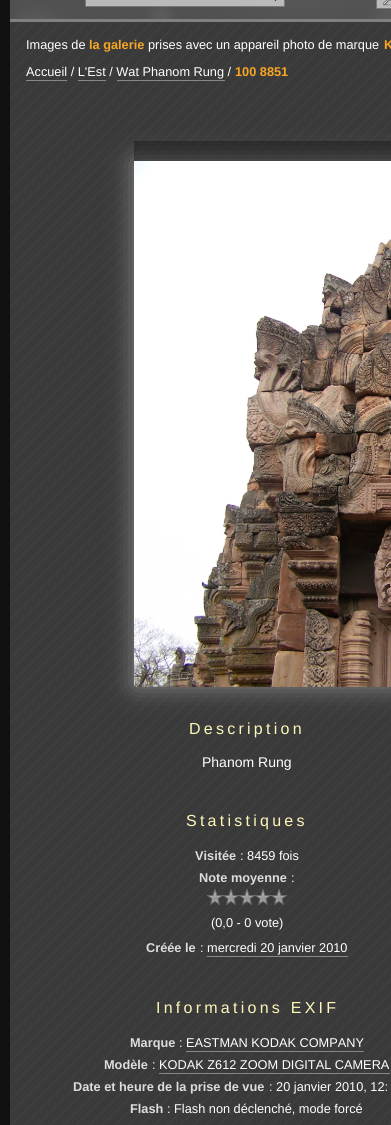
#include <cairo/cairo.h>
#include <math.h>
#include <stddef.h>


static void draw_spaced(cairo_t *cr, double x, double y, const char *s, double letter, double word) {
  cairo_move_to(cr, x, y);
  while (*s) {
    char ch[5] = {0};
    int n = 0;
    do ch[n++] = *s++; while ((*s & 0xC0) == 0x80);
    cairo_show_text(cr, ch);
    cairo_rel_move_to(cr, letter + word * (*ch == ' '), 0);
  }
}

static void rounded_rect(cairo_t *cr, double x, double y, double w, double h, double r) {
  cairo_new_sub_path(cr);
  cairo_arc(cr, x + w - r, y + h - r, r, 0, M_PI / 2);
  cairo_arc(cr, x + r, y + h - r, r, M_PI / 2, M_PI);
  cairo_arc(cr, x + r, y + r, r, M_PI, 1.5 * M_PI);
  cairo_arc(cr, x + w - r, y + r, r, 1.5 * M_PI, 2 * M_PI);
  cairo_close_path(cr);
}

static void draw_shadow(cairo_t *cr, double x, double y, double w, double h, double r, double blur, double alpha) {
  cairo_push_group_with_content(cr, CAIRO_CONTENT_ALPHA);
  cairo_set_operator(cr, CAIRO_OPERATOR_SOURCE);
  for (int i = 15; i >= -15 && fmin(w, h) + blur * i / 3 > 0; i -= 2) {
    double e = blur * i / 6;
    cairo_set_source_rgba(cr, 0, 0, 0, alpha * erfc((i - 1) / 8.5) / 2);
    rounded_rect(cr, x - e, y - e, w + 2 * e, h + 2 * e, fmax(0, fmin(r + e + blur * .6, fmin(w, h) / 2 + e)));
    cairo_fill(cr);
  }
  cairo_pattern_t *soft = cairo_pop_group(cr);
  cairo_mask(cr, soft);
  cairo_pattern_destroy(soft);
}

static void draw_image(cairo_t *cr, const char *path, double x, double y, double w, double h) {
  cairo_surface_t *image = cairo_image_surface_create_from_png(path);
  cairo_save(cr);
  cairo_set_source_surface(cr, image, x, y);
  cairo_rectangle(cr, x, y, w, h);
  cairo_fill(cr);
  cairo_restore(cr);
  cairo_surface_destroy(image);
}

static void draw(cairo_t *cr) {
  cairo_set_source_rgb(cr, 17 / 255.0, 17 / 255.0, 17 / 255.0);
  cairo_paint(cr);
  cairo_set_source_rgb(cr, 80 / 255.0, 80 / 255.0, 80 / 255.0);
  cairo_rectangle(cr, 10, 0, 5, 19);
  cairo_fill(cr);
  draw_image(cr, "images/1.png", 15, 0, 376, 19);
  cairo_set_source_rgb(cr, 128 / 255.0, 128 / 255.0, 128 / 255.0);
  cairo_rectangle(cr, 10, 19, 381, 3);
  cairo_fill(cr);
  cairo_set_source_rgb(cr, 186 / 255.0, 186 / 255.0, 186 / 255.0);
  cairo_rectangle(cr, 85.5, -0.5, 199, 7);
  cairo_fill_preserve(cr);
  cairo_set_source_rgb(cr, 119 / 255.0, 119 / 255.0, 119 / 255.0);
  cairo_set_line_width(cr, 1);
  cairo_stroke(cr);
  cairo_new_path(cr);
  cairo_move_to(cr, 271.5, -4.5);
  cairo_line_to(cr, 275.5, -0.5);
  cairo_line_to(cr, 279.5, -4.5);
  cairo_set_source_rgb(cr, 0, 0, 0);
  cairo_set_line_width(cr, 2);
  cairo_stroke(cr);
  cairo_set_source_rgb(cr, 186 / 255.0, 186 / 255.0, 186 / 255.0);
  cairo_rectangle(cr, 377, 0, 14, 8);
  cairo_fill(cr);
  draw_image(cr, "images/2.png", 382, 0, 9, 6);
  cairo_rectangle(cr, 376.5, -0.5, 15, 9);
  cairo_set_source_rgb(cr, 119 / 255.0, 119 / 255.0, 119 / 255.0);
  cairo_set_line_width(cr, 1);
  cairo_stroke(cr);
  cairo_set_source_rgb(cr, 58 / 255.0, 58 / 255.0, 58 / 255.0);
  cairo_rectangle(cr, 10, 22, 381, 1103);
  cairo_fill(cr);
  draw_image(cr, "images/3.png", 10, 22, 381, 1103);
  cairo_set_source_rgb(cr, 136 / 255.0, 136 / 255.0, 136 / 255.0);
  cairo_rectangle(cr, 26, 80, 41, 1);
  cairo_fill(cr);
  cairo_rectangle(cr, 78, 80, 28, 1);
  cairo_fill(cr);
  cairo_rectangle(cr, 117, 80, 108, 1);
  cairo_fill(cr);
  cairo_set_source_rgb(cr, 136 / 255.0, 136 / 255.0, 136 / 255.0);
  draw_shadow(cr, 134, 161, 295, 526, 0, 12.5, 1);
  draw_image(cr, "images/4.png", 134, 161, 257, 526);
  cairo_set_source_rgba(cr, 0, 0, 0, 0.3);
  cairo_rectangle(cr, 134, 141, 257, 20);
  cairo_fill(cr);
  draw_image(cr, "images/5.png", 207, 889, 16, 16);
  draw_image(cr, "images/6.png", 223, 889, 16, 16);
  draw_image(cr, "images/7.png", 239, 889, 16, 16);
  draw_image(cr, "images/8.png", 255, 889, 16, 16);
  draw_image(cr, "images/9.png", 271, 889, 16, 16);
  cairo_set_source_rgb(cr, 136 / 255.0, 136 / 255.0, 136 / 255.0);
  cairo_rectangle(cr, 207, 956, 141, 1);
  cairo_fill(cr);
  cairo_rectangle(cr, 186, 1051, 178, 1);
  cairo_fill(cr);
  cairo_rectangle(cr, 159, 1073, 231, 1);
  cairo_fill(cr);
  cairo_select_font_face(cr, "Liberation Sans", CAIRO_FONT_SLANT_NORMAL, CAIRO_FONT_WEIGHT_NORMAL);
  cairo_set_font_size(cr, 12.75);
  cairo_set_source_rgb(cr, 1, 1, 1);
  cairo_move_to(cr, 26, 49);
  cairo_show_text(cr, "Images de");
  cairo_select_font_face(cr, "Liberation Sans", CAIRO_FONT_SLANT_NORMAL, CAIRO_FONT_WEIGHT_BOLD);
  cairo_set_source_rgb(cr, 248 / 255.0, 166 / 255.0, 38 / 255.0);
  cairo_move_to(cr, 89, 49);
  cairo_show_text(cr, "la galerie");
  cairo_select_font_face(cr, "Liberation Sans", CAIRO_FONT_SLANT_NORMAL, CAIRO_FONT_WEIGHT_NORMAL);
  cairo_set_source_rgb(cr, 1, 1, 1);
  cairo_move_to(cr, 148, 49);
  cairo_show_text(cr, "prises avec un appareil photo de marque");
  cairo_select_font_face(cr, "Liberation Sans", CAIRO_FONT_SLANT_NORMAL, CAIRO_FONT_WEIGHT_BOLD);
  cairo_set_source_rgb(cr, 248 / 255.0, 166 / 255.0, 38 / 255.0);
  cairo_move_to(cr, 384, 49);
  cairo_show_text(cr, "K");
  cairo_select_font_face(cr, "Liberation Sans", CAIRO_FONT_SLANT_NORMAL, CAIRO_FONT_WEIGHT_NORMAL);
  cairo_set_source_rgb(cr, 1, 1, 1);
  cairo_move_to(cr, 26, 76);
  cairo_show_text(cr, "Accueil / L'Est / Wat Phanom Rung /");
  cairo_select_font_face(cr, "Liberation Sans", CAIRO_FONT_SLANT_NORMAL, CAIRO_FONT_WEIGHT_BOLD);
  cairo_set_source_rgb(cr, 248 / 255.0, 166 / 255.0, 38 / 255.0);
  cairo_move_to(cr, 235, 76);
  cairo_show_text(cr, "100 8851");
  cairo_select_font_face(cr, "Liberation Sans", CAIRO_FONT_SLANT_NORMAL, CAIRO_FONT_WEIGHT_NORMAL);
  cairo_set_font_size(cr, 16);
  cairo_set_source_rgb(cr, 1, 246 / 255.0, 185 / 255.0);
  draw_spaced(cr, 189, 734, "Description", 3.25, 0);
  cairo_set_font_size(cr, 14);
  cairo_set_source_rgb(cr, 1, 1, 1);
  cairo_move_to(cr, 202, 767);
  cairo_show_text(cr, "Phanom Rung");
  cairo_set_font_size(cr, 16);
  cairo_set_source_rgb(cr, 1, 246 / 255.0, 185 / 255.0);
  draw_spaced(cr, 186, 826, "Statistiques", 3.25, 0);
  cairo_select_font_face(cr, "Liberation Sans", CAIRO_FONT_SLANT_NORMAL, CAIRO_FONT_WEIGHT_BOLD);
  cairo_set_font_size(cr, 12.75);
  cairo_set_source_rgb(cr, 221 / 255.0, 221 / 255.0, 221 / 255.0);
  cairo_move_to(cr, 195, 860);
  cairo_show_text(cr, "Visitée");
  cairo_select_font_face(cr, "Liberation Sans", CAIRO_FONT_SLANT_NORMAL, CAIRO_FONT_WEIGHT_NORMAL);
  cairo_set_source_rgb(cr, 1, 1, 1);
  cairo_move_to(cr, 240, 860);
  cairo_show_text(cr, ": 8459 fois");
  cairo_select_font_face(cr, "Liberation Sans", CAIRO_FONT_SLANT_NORMAL, CAIRO_FONT_WEIGHT_BOLD);
  cairo_set_source_rgb(cr, 221 / 255.0, 221 / 255.0, 221 / 255.0);
  cairo_move_to(cr, 199, 882);
  cairo_show_text(cr, "Note moyenne");
  cairo_select_font_face(cr, "Liberation Sans", CAIRO_FONT_SLANT_NORMAL, CAIRO_FONT_WEIGHT_NORMAL);
  cairo_set_source_rgb(cr, 1, 1, 1);
  cairo_move_to(cr, 291, 882);
  cairo_show_text(cr, ":");
  cairo_move_to(cr, 211, 927);
  cairo_show_text(cr, "(0,0 - 0 vote)");
  cairo_select_font_face(cr, "Liberation Sans", CAIRO_FONT_SLANT_NORMAL, CAIRO_FONT_WEIGHT_BOLD);
  cairo_set_source_rgb(cr, 221 / 255.0, 221 / 255.0, 221 / 255.0);
  cairo_move_to(cr, 146, 952);
  cairo_show_text(cr, "Créée le");
  cairo_select_font_face(cr, "Liberation Sans", CAIRO_FONT_SLANT_NORMAL, CAIRO_FONT_WEIGHT_NORMAL);
  cairo_set_source_rgb(cr, 1, 1, 1);
  cairo_move_to(cr, 200, 952);
  cairo_show_text(cr, ": mercredi 20 janvier 2010");
  cairo_set_font_size(cr, 16);
  cairo_set_source_rgb(cr, 1, 246 / 255.0, 185 / 255.0);
  draw_spaced(cr, 156, 1013, "Informations EXIF", 3.25, 0);
  cairo_select_font_face(cr, "Liberation Sans", CAIRO_FONT_SLANT_NORMAL, CAIRO_FONT_WEIGHT_BOLD);
  cairo_set_font_size(cr, 12.75);
  cairo_set_source_rgb(cr, 221 / 255.0, 221 / 255.0, 221 / 255.0);
  cairo_move_to(cr, 130, 1047);
  cairo_show_text(cr, "Marque");
  cairo_select_font_face(cr, "Liberation Sans", CAIRO_FONT_SLANT_NORMAL, CAIRO_FONT_WEIGHT_NORMAL);
  cairo_set_source_rgb(cr, 1, 1, 1);
  cairo_move_to(cr, 179, 1047);
  cairo_show_text(cr, ": EASTMAN KODAK COMPANY");
  cairo_select_font_face(cr, "Liberation Sans", CAIRO_FONT_SLANT_NORMAL, CAIRO_FONT_WEIGHT_BOLD);
  cairo_set_source_rgb(cr, 221 / 255.0, 221 / 255.0, 221 / 255.0);
  cairo_move_to(cr, 104, 1069);
  cairo_show_text(cr, "Modèle");
  cairo_select_font_face(cr, "Liberation Sans", CAIRO_FONT_SLANT_NORMAL, CAIRO_FONT_WEIGHT_NORMAL);
  cairo_set_source_rgb(cr, 1, 1, 1);
  cairo_move_to(cr, 152, 1069);
  cairo_show_text(cr, ": KODAK Z612 ZOOM DIGITAL CAMERA");
  cairo_select_font_face(cr, "Liberation Sans", CAIRO_FONT_SLANT_NORMAL, CAIRO_FONT_WEIGHT_BOLD);
  cairo_set_source_rgb(cr, 221 / 255.0, 221 / 255.0, 221 / 255.0);
  cairo_move_to(cr, 73, 1091);
  cairo_show_text(cr, "Date et heure de la prise de vue");
  cairo_select_font_face(cr, "Liberation Sans", CAIRO_FONT_SLANT_NORMAL, CAIRO_FONT_WEIGHT_NORMAL);
  cairo_set_source_rgb(cr, 1, 1, 1);
  cairo_move_to(cr, 269, 1091);
  cairo_show_text(cr, ": 20 janvier 2010, 12:");
  cairo_select_font_face(cr, "Liberation Sans", CAIRO_FONT_SLANT_NORMAL, CAIRO_FONT_WEIGHT_BOLD);
  cairo_set_source_rgb(cr, 221 / 255.0, 221 / 255.0, 221 / 255.0);
  cairo_move_to(cr, 130, 1113);
  cairo_show_text(cr, "Flash");
  cairo_select_font_face(cr, "Liberation Sans", CAIRO_FONT_SLANT_NORMAL, CAIRO_FONT_WEIGHT_NORMAL);
  cairo_set_source_rgb(cr, 1, 1, 1);
  cairo_move_to(cr, 167, 1113);
  cairo_show_text(cr, ": Flash non déclenché, mode forcé");
}

int main(void) {
  cairo_surface_t *surface = cairo_image_surface_create(CAIRO_FORMAT_RGB24, 391, 1125);
  cairo_t *cr = cairo_create(surface);
  cairo_font_options_t *options = cairo_font_options_create();
  cairo_font_options_set_hint_metrics(options, CAIRO_HINT_METRICS_OFF);
  cairo_font_options_set_hint_style(options, CAIRO_HINT_STYLE_NONE);
  cairo_set_font_options(cr, options);
  cairo_set_miter_limit(cr, 4);
  draw(cr);
  cairo_surface_write_to_png(surface, "out.png");
  cairo_font_options_destroy(options);
  cairo_destroy(cr);
  cairo_surface_destroy(surface);
  return 0;
}
